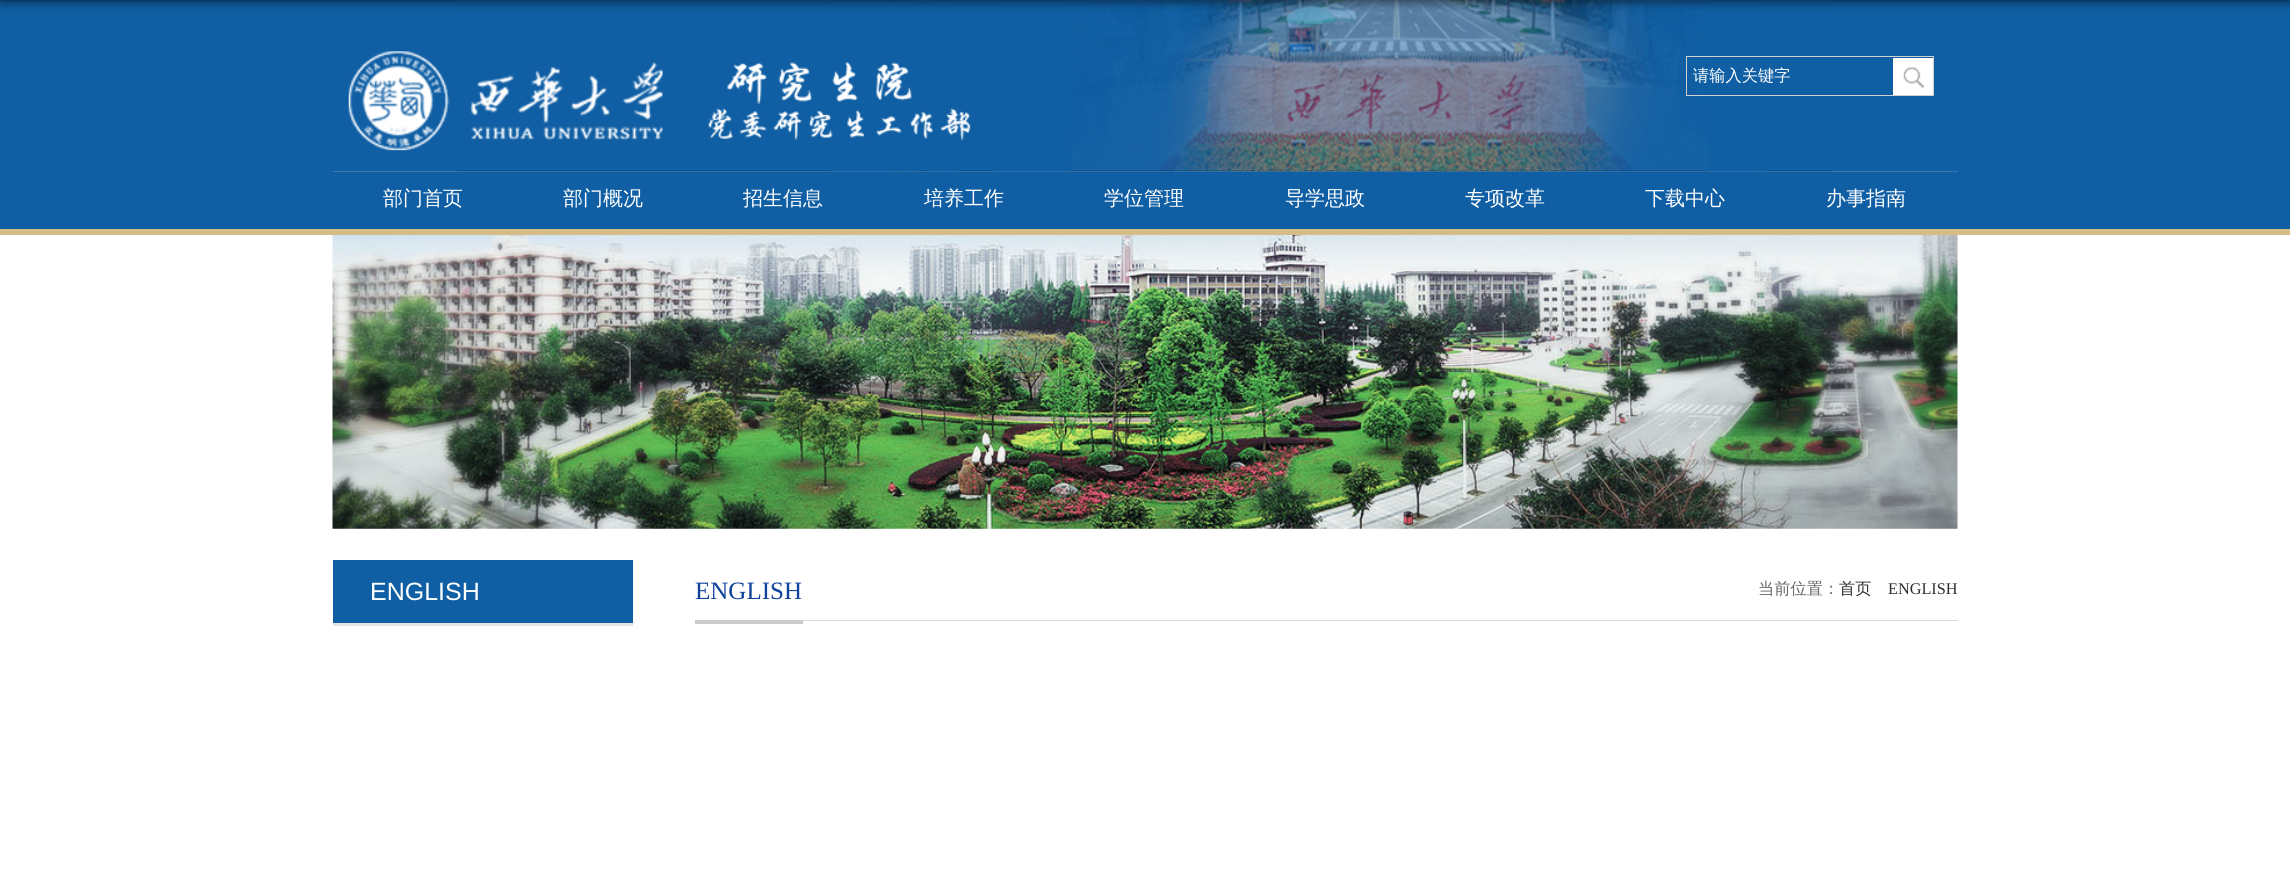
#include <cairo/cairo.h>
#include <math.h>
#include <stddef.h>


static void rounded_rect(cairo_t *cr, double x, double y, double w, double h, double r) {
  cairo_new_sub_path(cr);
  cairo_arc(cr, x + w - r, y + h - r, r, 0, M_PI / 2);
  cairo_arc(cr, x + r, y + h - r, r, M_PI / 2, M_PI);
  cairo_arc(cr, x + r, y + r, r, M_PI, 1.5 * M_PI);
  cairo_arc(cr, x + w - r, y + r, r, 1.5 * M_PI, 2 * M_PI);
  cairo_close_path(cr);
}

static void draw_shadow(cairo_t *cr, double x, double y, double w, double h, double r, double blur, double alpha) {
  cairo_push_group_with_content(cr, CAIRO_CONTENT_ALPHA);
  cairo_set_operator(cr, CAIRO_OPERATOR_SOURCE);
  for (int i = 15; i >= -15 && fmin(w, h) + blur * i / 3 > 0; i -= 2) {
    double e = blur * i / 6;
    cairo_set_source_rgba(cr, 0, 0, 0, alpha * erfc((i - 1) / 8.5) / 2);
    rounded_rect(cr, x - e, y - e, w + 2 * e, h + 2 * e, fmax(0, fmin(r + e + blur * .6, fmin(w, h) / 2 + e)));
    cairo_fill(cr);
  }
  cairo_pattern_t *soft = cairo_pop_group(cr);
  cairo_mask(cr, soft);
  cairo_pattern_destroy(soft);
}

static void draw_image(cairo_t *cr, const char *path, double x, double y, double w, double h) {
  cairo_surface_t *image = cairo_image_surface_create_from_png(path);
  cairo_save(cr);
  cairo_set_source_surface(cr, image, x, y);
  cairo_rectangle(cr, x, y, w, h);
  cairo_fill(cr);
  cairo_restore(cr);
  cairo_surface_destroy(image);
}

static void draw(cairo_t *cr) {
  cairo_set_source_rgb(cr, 1, 1, 1);
  cairo_paint(cr);
  cairo_set_source_rgb(cr, 16 / 255.0, 95 / 255.0, 165 / 255.0);
  cairo_rectangle(cr, 0, 0, 2290, 229);
  cairo_fill(cr);
  cairo_set_source_rgb(cr, 57 / 255.0, 119 / 255.0, 174 / 255.0);
  cairo_rectangle(cr, 333, 171, 1625, 1);
  cairo_fill(cr);
  draw_image(cr, "images/1.png", 457, 0, 1376, 172);
  cairo_set_source_rgb(cr, 0, 0, 0);
  draw_shadow(cr, 0, -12, 2290, 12, 0, 6, 0.8);
  draw_image(cr, "images/2.png", 348, 51, 623, 100);
  cairo_rectangle(cr, 1686.5, 56.5, 247, 39);
  cairo_set_source_rgb(cr, 208 / 255.0, 208 / 255.0, 208 / 255.0);
  cairo_set_line_width(cr, 1);
  cairo_stroke(cr);
  cairo_set_source_rgb(cr, 1, 1, 1);
  cairo_rectangle(cr, 1893, 58, 40, 37);
  cairo_fill(cr);
  draw_image(cr, "images/3.png", 1903, 67, 21, 21);
  cairo_set_source_rgb(cr, 214 / 255.0, 189 / 255.0, 136 / 255.0);
  cairo_rectangle(cr, 0, 229, 2290, 6);
  cairo_fill(cr);
  draw_image(cr, "images/4.png", 332, 235, 1626, 294);
  cairo_set_source_rgb(cr, 16 / 255.0, 95 / 255.0, 165 / 255.0);
  cairo_rectangle(cr, 333, 560, 300, 63);
  cairo_fill(cr);
  cairo_set_source_rgb(cr, 228 / 255.0, 228 / 255.0, 228 / 255.0);
  cairo_rectangle(cr, 333, 623, 300, 3);
  cairo_fill(cr);
  cairo_set_source_rgb(cr, 219 / 255.0, 219 / 255.0, 219 / 255.0);
  cairo_rectangle(cr, 803, 620, 1155, 1);
  cairo_fill(cr);
  cairo_set_source_rgb(cr, 203 / 255.0, 203 / 255.0, 203 / 255.0);
  cairo_rectangle(cr, 695, 620, 108, 4);
  cairo_fill(cr);
  cairo_select_font_face(cr, "WenQuanYi Zen Hei Medium", CAIRO_FONT_SLANT_NORMAL, CAIRO_FONT_WEIGHT_NORMAL);
  cairo_set_font_size(cr, 16.25);
  cairo_set_source_rgb(cr, 1, 1, 1);
  cairo_move_to(cr, 1693, 81);
  cairo_show_text(cr, "请输入关键字");
  cairo_set_font_size(cr, 20);
  cairo_move_to(cr, 383, 205);
  cairo_show_text(cr, "部门首页");
  cairo_move_to(cr, 563, 205);
  cairo_show_text(cr, "部门概况");
  cairo_move_to(cr, 743, 205);
  cairo_show_text(cr, "招生信息");
  cairo_move_to(cr, 924, 205);
  cairo_show_text(cr, "培养工作");
  cairo_move_to(cr, 1104, 205);
  cairo_show_text(cr, "学位管理");
  cairo_move_to(cr, 1285, 205);
  cairo_show_text(cr, "导学思政");
  cairo_move_to(cr, 1465, 205);
  cairo_show_text(cr, "专项改革");
  cairo_move_to(cr, 1645, 205);
  cairo_show_text(cr, "下载中心");
  cairo_move_to(cr, 1826, 205);
  cairo_show_text(cr, "办事指南");
  cairo_select_font_face(cr, "Liberation Sans", CAIRO_FONT_SLANT_NORMAL, CAIRO_FONT_WEIGHT_NORMAL);
  cairo_set_font_size(cr, 25);
  cairo_move_to(cr, 370, 600);
  cairo_show_text(cr, "ENGLISH");
  cairo_select_font_face(cr, "Liberation Serif", CAIRO_FONT_SLANT_NORMAL, CAIRO_FONT_WEIGHT_NORMAL);
  cairo_set_source_rgb(cr, 15 / 255.0, 66 / 255.0, 155 / 255.0);
  cairo_move_to(cr, 695, 599);
  cairo_show_text(cr, "ENGLISH");
  cairo_select_font_face(cr, "WenQuanYi Zen Hei Medium", CAIRO_FONT_SLANT_NORMAL, CAIRO_FONT_WEIGHT_NORMAL);
  cairo_set_font_size(cr, 16.25);
  cairo_set_source_rgb(cr, 102 / 255.0, 102 / 255.0, 102 / 255.0);
  cairo_move_to(cr, 1758, 594);
  cairo_show_text(cr, "当前位置：");
  cairo_set_source_rgb(cr, 47 / 255.0, 47 / 255.0, 47 / 255.0);
  cairo_move_to(cr, 1839, 594);
  cairo_show_text(cr, "首页");
  cairo_select_font_face(cr, "Liberation Serif", CAIRO_FONT_SLANT_NORMAL, CAIRO_FONT_WEIGHT_NORMAL);
  cairo_move_to(cr, 1888, 594);
  cairo_show_text(cr, "ENGLISH");
}

int main(void) {
  cairo_surface_t *surface = cairo_image_surface_create(CAIRO_FORMAT_RGB24, 2290, 883);
  cairo_t *cr = cairo_create(surface);
  cairo_font_options_t *options = cairo_font_options_create();
  cairo_font_options_set_hint_metrics(options, CAIRO_HINT_METRICS_OFF);
  cairo_font_options_set_hint_style(options, CAIRO_HINT_STYLE_NONE);
  cairo_set_font_options(cr, options);
  cairo_set_miter_limit(cr, 4);
  draw(cr);
  cairo_surface_write_to_png(surface, "out.png");
  cairo_font_options_destroy(options);
  cairo_destroy(cr);
  cairo_surface_destroy(surface);
  return 0;
}
